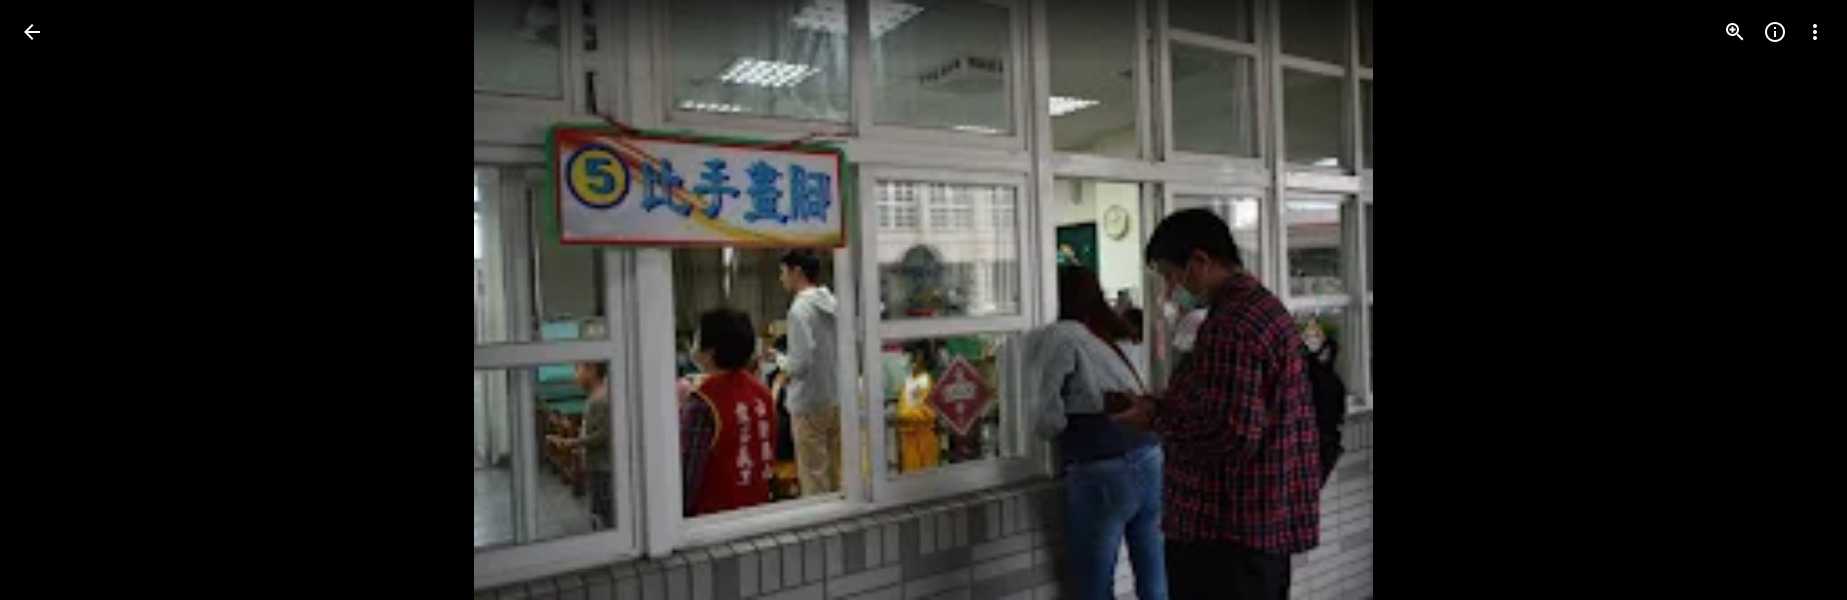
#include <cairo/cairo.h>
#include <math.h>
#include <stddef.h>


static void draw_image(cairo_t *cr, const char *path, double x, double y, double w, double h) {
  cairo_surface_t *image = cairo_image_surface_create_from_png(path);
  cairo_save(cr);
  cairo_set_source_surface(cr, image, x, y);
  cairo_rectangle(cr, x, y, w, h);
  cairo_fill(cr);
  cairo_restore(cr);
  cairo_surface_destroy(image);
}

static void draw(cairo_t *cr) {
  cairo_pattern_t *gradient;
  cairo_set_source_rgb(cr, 0, 0, 0);
  cairo_paint(cr);
  draw_image(cr, "images/5.png", 474, 0, 899, 600);
  gradient = cairo_pattern_create_linear(924, 0, 924, 64);
  cairo_pattern_add_color_stop_rgba(gradient, 0, 0, 0, 0, 0.6);
  cairo_pattern_add_color_stop_rgba(gradient, 1, 0, 0, 0, 0);
  cairo_set_source(cr, gradient);
  cairo_pattern_destroy(gradient);
  cairo_rectangle(cr, 474, 0, 899, 62);
  cairo_fill(cr);
  draw_image(cr, "images/1.png", 24, 24, 16, 16);
  draw_image(cr, "images/2.png", 1726, 23, 18, 18);
  draw_image(cr, "images/3.png", 1765, 22, 20, 20);
  draw_image(cr, "images/4.png", 1813, 24, 4, 16);
}

int main(void) {
  cairo_surface_t *surface = cairo_image_surface_create(CAIRO_FORMAT_RGB24, 1847, 600);
  cairo_t *cr = cairo_create(surface);
  cairo_font_options_t *options = cairo_font_options_create();
  cairo_font_options_set_hint_metrics(options, CAIRO_HINT_METRICS_OFF);
  cairo_font_options_set_hint_style(options, CAIRO_HINT_STYLE_NONE);
  cairo_set_font_options(cr, options);
  cairo_set_miter_limit(cr, 4);
  draw(cr);
  cairo_surface_write_to_png(surface, "out.png");
  cairo_font_options_destroy(options);
  cairo_destroy(cr);
  cairo_surface_destroy(surface);
  return 0;
}
